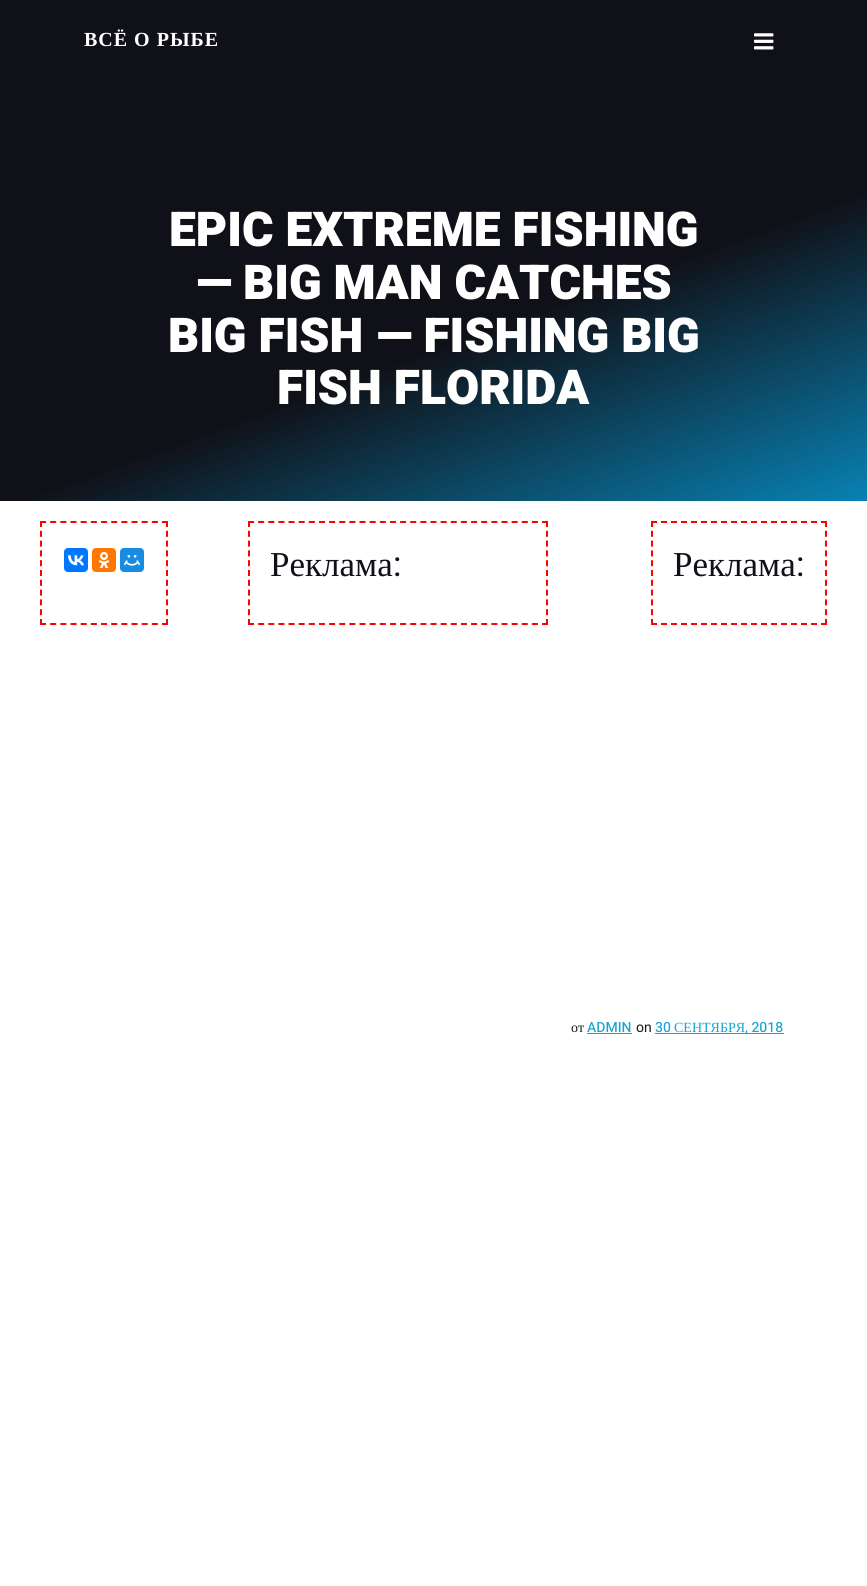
#include <cairo/cairo.h>
#include <math.h>
#include <stddef.h>


static void draw_spaced(cairo_t *cr, double x, double y, const char *s, double letter, double word) {
  cairo_move_to(cr, x, y);
  while (*s) {
    char ch[5] = {0};
    int n = 0;
    do ch[n++] = *s++; while ((*s & 0xC0) == 0x80);
    cairo_show_text(cr, ch);
    cairo_rel_move_to(cr, letter + word * (*ch == ' '), 0);
  }
}

static void rounded_rect(cairo_t *cr, double x, double y, double w, double h, double r) {
  cairo_new_sub_path(cr);
  cairo_arc(cr, x + w - r, y + h - r, r, 0, M_PI / 2);
  cairo_arc(cr, x + r, y + h - r, r, M_PI / 2, M_PI);
  cairo_arc(cr, x + r, y + r, r, M_PI, 1.5 * M_PI);
  cairo_arc(cr, x + w - r, y + r, r, 1.5 * M_PI, 2 * M_PI);
  cairo_close_path(cr);
}

static void draw_image(cairo_t *cr, const char *path, double x, double y, double w, double h) {
  cairo_surface_t *image = cairo_image_surface_create_from_png(path);
  cairo_save(cr);
  cairo_set_source_surface(cr, image, x, y);
  cairo_rectangle(cr, x, y, w, h);
  cairo_fill(cr);
  cairo_restore(cr);
  cairo_surface_destroy(image);
}

static void draw(cairo_t *cr) {
  cairo_pattern_t *gradient;
  cairo_set_source_rgb(cr, 1, 1, 1);
  cairo_paint(cr);
  gradient = cairo_pattern_create_linear(302, -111, 565, 612);
  cairo_pattern_add_color_stop_rgba(gradient, 0.62, 16 / 255.0, 17 / 255.0, 24 / 255.0, 1);
  cairo_pattern_add_color_stop_rgba(gradient, 1, 8 / 255.0, 130 / 255.0, 180 / 255.0, 1);
  cairo_set_source(cr, gradient);
  cairo_pattern_destroy(gradient);
  cairo_rectangle(cr, 0, 0, 867, 501);
  cairo_fill(cr);
  draw_image(cr, "images/1.png", 754, 33, 20, 17);
  cairo_new_path(cr);
  cairo_move_to(cr, 40, 522);
  cairo_line_to(cr, 168, 522);
  cairo_set_source_rgb(cr, 1, 0, 0);
  cairo_set_dash(cr, (double[]){6, 4.17}, 2, 0);
  cairo_stroke(cr);
  cairo_new_path(cr);
  cairo_move_to(cr, 167, 521);
  cairo_line_to(cr, 167, 625);
  cairo_set_dash(cr, (double[]){6, 3.8}, 2, 0);
  cairo_stroke(cr);
  cairo_new_path(cr);
  cairo_move_to(cr, 40, 624);
  cairo_line_to(cr, 168, 624);
  cairo_set_dash(cr, (double[]){6, 4.17}, 2, 0);
  cairo_stroke(cr);
  cairo_new_path(cr);
  cairo_move_to(cr, 41, 521);
  cairo_line_to(cr, 41, 625);
  cairo_set_dash(cr, (double[]){6, 3.8}, 2, 0);
  cairo_stroke(cr);
  cairo_set_source_rgb(cr, 0, 119 / 255.0, 1);
  rounded_rect(cr, 64, 548, 24, 24, 4);
  cairo_fill(cr);
  draw_image(cr, "images/2.png", 68, 555, 16, 11);
  cairo_set_source_rgb(cr, 1, 119 / 255.0, 0);
  rounded_rect(cr, 92, 548, 24, 24, 4);
  cairo_fill(cr);
  draw_image(cr, "images/3.png", 98, 552, 12, 16);
  cairo_set_source_rgb(cr, 22 / 255.0, 141 / 255.0, 226 / 255.0);
  rounded_rect(cr, 120, 548, 24, 24, 4);
  cairo_fill(cr);
  draw_image(cr, "images/4.png", 124, 555, 16, 11);
  cairo_new_path(cr);
  cairo_move_to(cr, 248, 522);
  cairo_line_to(cr, 548, 522);
  cairo_set_source_rgb(cr, 1, 0, 0);
  cairo_set_dash(cr, (double[]){6, 4.14}, 2, 0);
  cairo_stroke(cr);
  cairo_new_path(cr);
  cairo_move_to(cr, 547, 521);
  cairo_line_to(cr, 547, 625);
  cairo_set_dash(cr, (double[]){6, 3.8}, 2, 0);
  cairo_stroke(cr);
  cairo_new_path(cr);
  cairo_move_to(cr, 248, 624);
  cairo_line_to(cr, 548, 624);
  cairo_set_dash(cr, (double[]){6, 4.14}, 2, 0);
  cairo_stroke(cr);
  cairo_new_path(cr);
  cairo_move_to(cr, 249, 521);
  cairo_line_to(cr, 249, 625);
  cairo_set_dash(cr, (double[]){6, 3.8}, 2, 0);
  cairo_stroke(cr);
  cairo_new_path(cr);
  cairo_move_to(cr, 651, 522);
  cairo_line_to(cr, 827, 522);
  cairo_set_dash(cr, (double[]){6, 4}, 2, 0);
  cairo_stroke(cr);
  cairo_new_path(cr);
  cairo_move_to(cr, 826, 521);
  cairo_line_to(cr, 826, 625);
  cairo_set_dash(cr, (double[]){6, 3.8}, 2, 0);
  cairo_stroke(cr);
  cairo_new_path(cr);
  cairo_move_to(cr, 651, 624);
  cairo_line_to(cr, 827, 624);
  cairo_set_dash(cr, (double[]){6, 4}, 2, 0);
  cairo_stroke(cr);
  cairo_new_path(cr);
  cairo_move_to(cr, 652, 521);
  cairo_line_to(cr, 652, 625);
  cairo_set_dash(cr, (double[]){6, 3.8}, 2, 0);
  cairo_stroke(cr);
  cairo_set_source_rgb(cr, 22 / 255.0, 164 / 255.0, 211 / 255.0);
  cairo_rectangle(cr, 587, 1033, 45, 1);
  cairo_fill(cr);
  cairo_rectangle(cr, 655, 1033, 129, 1);
  cairo_fill(cr);
  cairo_select_font_face(cr, "Liberation Serif", CAIRO_FONT_SLANT_NORMAL, CAIRO_FONT_WEIGHT_BOLD);
  cairo_set_font_size(cr, 20);
  cairo_set_source_rgb(cr, 1, 1, 1);
  draw_spaced(cr, 84, 46, "ВСЁ О РЫБЕ", 1, 0);
  cairo_select_font_face(cr, "Heebo Black", CAIRO_FONT_SLANT_NORMAL, CAIRO_FONT_WEIGHT_NORMAL);
  cairo_set_font_size(cr, 48);
  cairo_move_to(cr, 169, 246);
  cairo_show_text(cr, "EPIC EXTREME FISHING");
  cairo_move_to(cr, 195, 299);
  cairo_show_text(cr, "— BIG MAN CATCHES");
  cairo_move_to(cr, 168, 352);
  cairo_show_text(cr, "BIG FISH — FISHING BIG");
  cairo_move_to(cr, 277, 404);
  cairo_show_text(cr, "FISH FLORIDA");
  cairo_select_font_face(cr, "Liberation Serif", CAIRO_FONT_SLANT_NORMAL, CAIRO_FONT_WEIGHT_NORMAL);
  cairo_set_font_size(cr, 35);
  cairo_set_source_rgb(cr, 16 / 255.0, 17 / 255.0, 24 / 255.0);
  cairo_move_to(cr, 270, 576);
  cairo_show_text(cr, "Реклама");
  cairo_select_font_face(cr, "Heebo", CAIRO_FONT_SLANT_NORMAL, CAIRO_FONT_WEIGHT_NORMAL);
  cairo_move_to(cr, 393, 576);
  cairo_show_text(cr, ":");
  cairo_select_font_face(cr, "Liberation Serif", CAIRO_FONT_SLANT_NORMAL, CAIRO_FONT_WEIGHT_NORMAL);
  cairo_move_to(cr, 673, 576);
  cairo_show_text(cr, "Реклама");
  cairo_select_font_face(cr, "Heebo", CAIRO_FONT_SLANT_NORMAL, CAIRO_FONT_WEIGHT_NORMAL);
  cairo_move_to(cr, 796, 576);
  cairo_show_text(cr, ":");
  cairo_select_font_face(cr, "Liberation Serif", CAIRO_FONT_SLANT_NORMAL, CAIRO_FONT_WEIGHT_NORMAL);
  cairo_set_font_size(cr, 14);
  cairo_set_source_rgb(cr, 24 / 255.0, 24 / 255.0, 24 / 255.0);
  cairo_move_to(cr, 571, 1032);
  cairo_show_text(cr, "от");
  cairo_select_font_face(cr, "Heebo Medium", CAIRO_FONT_SLANT_NORMAL, CAIRO_FONT_WEIGHT_NORMAL);
  cairo_set_source_rgb(cr, 22 / 255.0, 164 / 255.0, 211 / 255.0);
  cairo_move_to(cr, 587, 1032);
  cairo_show_text(cr, "ADMIN");
  cairo_select_font_face(cr, "Heebo", CAIRO_FONT_SLANT_NORMAL, CAIRO_FONT_WEIGHT_NORMAL);
  cairo_set_source_rgb(cr, 24 / 255.0, 24 / 255.0, 24 / 255.0);
  cairo_move_to(cr, 636, 1032);
  cairo_show_text(cr, "on");
  cairo_select_font_face(cr, "Heebo Medium", CAIRO_FONT_SLANT_NORMAL, CAIRO_FONT_WEIGHT_NORMAL);
  cairo_set_source_rgb(cr, 22 / 255.0, 164 / 255.0, 211 / 255.0);
  cairo_move_to(cr, 655, 1032);
  cairo_show_text(cr, "30");
  cairo_select_font_face(cr, "Liberation Serif", CAIRO_FONT_SLANT_NORMAL, CAIRO_FONT_WEIGHT_NORMAL);
  cairo_move_to(cr, 674, 1032);
  cairo_show_text(cr, "СЕНТЯБРЯ");
  cairo_select_font_face(cr, "Heebo Medium", CAIRO_FONT_SLANT_NORMAL, CAIRO_FONT_WEIGHT_NORMAL);
  cairo_move_to(cr, 745, 1032);
  cairo_show_text(cr, ", 2018");
}

int main(void) {
  cairo_surface_t *surface = cairo_image_surface_create(CAIRO_FORMAT_RGB24, 867, 1586);
  cairo_t *cr = cairo_create(surface);
  cairo_font_options_t *options = cairo_font_options_create();
  cairo_font_options_set_hint_metrics(options, CAIRO_HINT_METRICS_OFF);
  cairo_font_options_set_hint_style(options, CAIRO_HINT_STYLE_NONE);
  cairo_set_font_options(cr, options);
  cairo_set_miter_limit(cr, 4);
  draw(cr);
  cairo_surface_write_to_png(surface, "out.png");
  cairo_font_options_destroy(options);
  cairo_destroy(cr);
  cairo_surface_destroy(surface);
  return 0;
}
